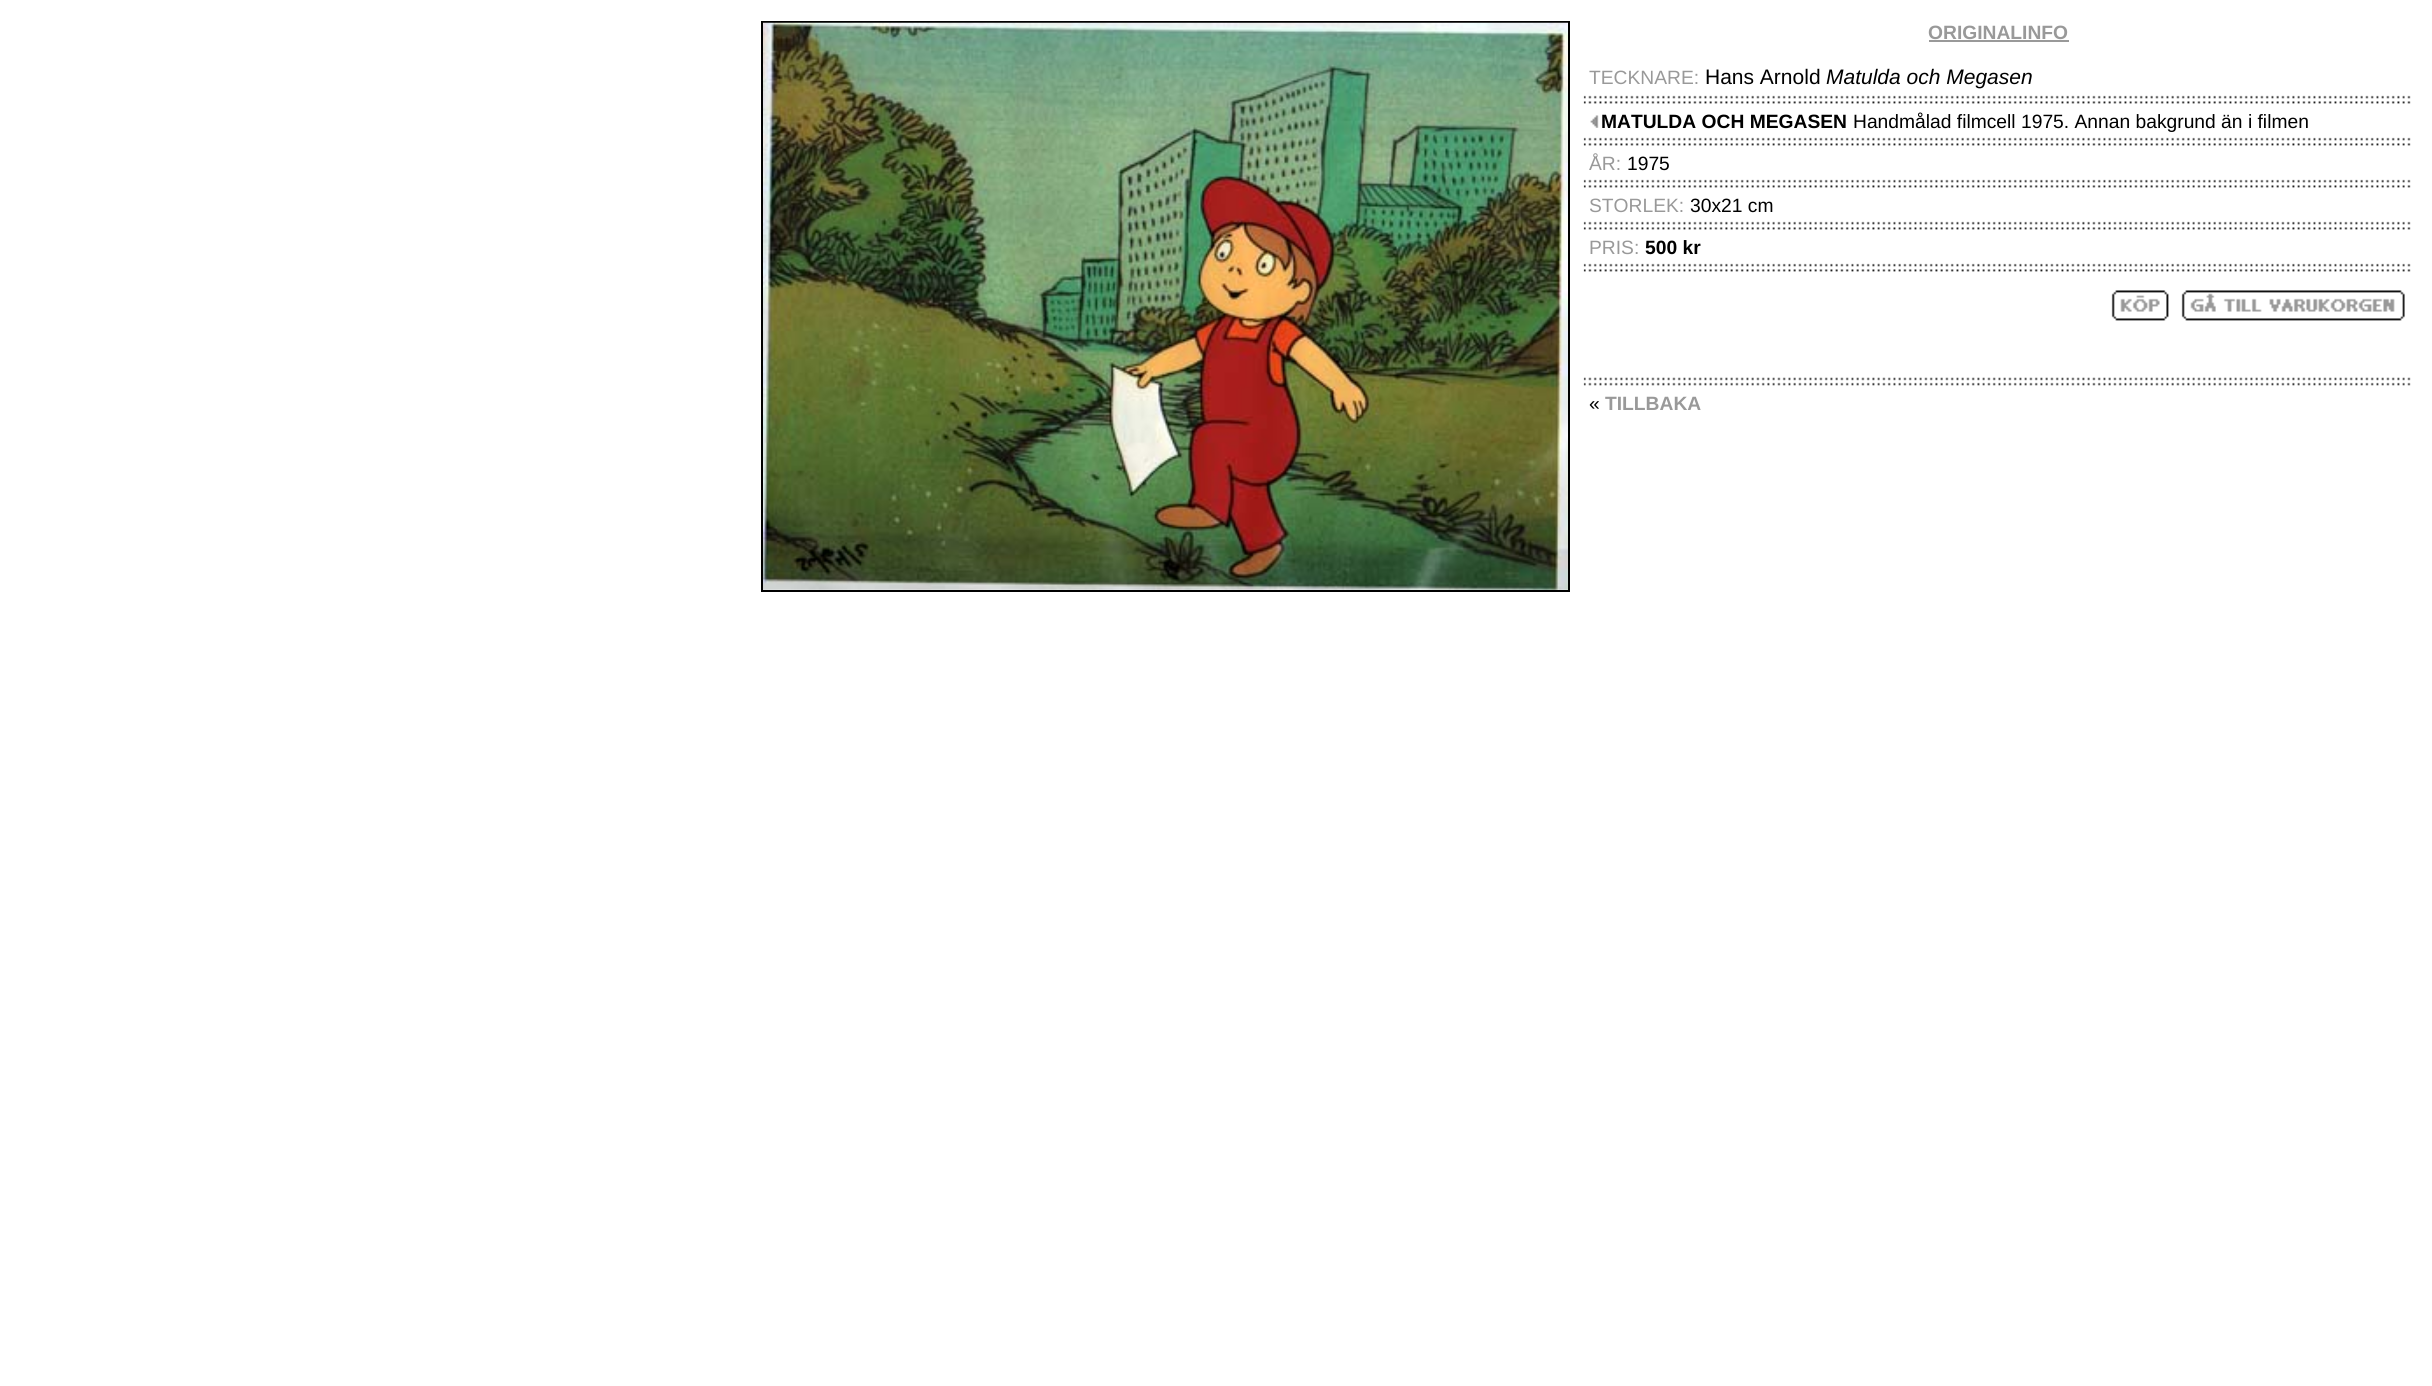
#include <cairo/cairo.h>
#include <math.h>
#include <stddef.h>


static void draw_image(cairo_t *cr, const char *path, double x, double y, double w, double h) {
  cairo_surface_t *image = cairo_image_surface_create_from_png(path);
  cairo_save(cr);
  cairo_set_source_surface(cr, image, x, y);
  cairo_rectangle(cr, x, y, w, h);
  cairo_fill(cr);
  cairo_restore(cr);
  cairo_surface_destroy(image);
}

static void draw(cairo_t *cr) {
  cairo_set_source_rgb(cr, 1, 1, 1);
  cairo_paint(cr);
  cairo_rectangle(cr, 762, 22, 807, 569);
  cairo_set_source_rgb(cr, 0, 0, 0);
  cairo_stroke(cr);
  draw_image(cr, "images/1.png", 763, 22, 805, 568);
  cairo_set_source_rgb(cr, 153 / 255.0, 153 / 255.0, 153 / 255.0);
  cairo_rectangle(cr, 1929, 40, 140, 2);
  cairo_fill(cr);
  draw_image(cr, "images/2.png", 1583, 95, 828, 9);
  draw_image(cr, "images/3.png", 1590, 115, 9, 13);
  draw_image(cr, "images/2.png", 1583, 137, 828, 9);
  draw_image(cr, "images/2.png", 1583, 179, 828, 9);
  draw_image(cr, "images/2.png", 1583, 221, 828, 9);
  draw_image(cr, "images/2.png", 1583, 263, 828, 9);
  draw_image(cr, "images/4.png", 2111, 290, 58, 31);
  draw_image(cr, "images/5.png", 2181, 290, 224, 31);
  draw_image(cr, "images/6.png", 1583, 377, 828, 9);
  cairo_select_font_face(cr, "Liberation Sans", CAIRO_FONT_SLANT_NORMAL, CAIRO_FONT_WEIGHT_BOLD);
  cairo_set_font_size(cr, 19.25);
  cairo_move_to(cr, 1928, 39);
  cairo_show_text(cr, "ORIGINALINFO");
  cairo_select_font_face(cr, "Liberation Sans", CAIRO_FONT_SLANT_NORMAL, CAIRO_FONT_WEIGHT_NORMAL);
  cairo_move_to(cr, 1589, 84);
  cairo_show_text(cr, "TECKNARE:");
  cairo_set_font_size(cr, 21);
  cairo_set_source_rgb(cr, 0, 0, 0);
  cairo_move_to(cr, 1705, 84);
  cairo_show_text(cr, "Hans Arnold");
  cairo_select_font_face(cr, "Liberation Sans", CAIRO_FONT_SLANT_ITALIC, CAIRO_FONT_WEIGHT_NORMAL);
  cairo_move_to(cr, 1826, 84);
  cairo_show_text(cr, "Matulda och Megasen");
  cairo_select_font_face(cr, "Liberation Sans", CAIRO_FONT_SLANT_NORMAL, CAIRO_FONT_WEIGHT_BOLD);
  cairo_set_font_size(cr, 19.25);
  cairo_move_to(cr, 1601, 128);
  cairo_show_text(cr, "MATULDA OCH MEGASEN");
  cairo_select_font_face(cr, "Liberation Sans", CAIRO_FONT_SLANT_NORMAL, CAIRO_FONT_WEIGHT_NORMAL);
  cairo_move_to(cr, 1853, 128);
  cairo_show_text(cr, "Handmålad filmcell 1975. Annan bakgrund än i filmen");
  cairo_set_source_rgb(cr, 153 / 255.0, 153 / 255.0, 153 / 255.0);
  cairo_move_to(cr, 1589, 170);
  cairo_show_text(cr, "ÅR:");
  cairo_set_source_rgb(cr, 0, 0, 0);
  cairo_move_to(cr, 1627, 170);
  cairo_show_text(cr, "1975");
  cairo_set_source_rgb(cr, 153 / 255.0, 153 / 255.0, 153 / 255.0);
  cairo_move_to(cr, 1589, 212);
  cairo_show_text(cr, "STORLEK:");
  cairo_set_source_rgb(cr, 0, 0, 0);
  cairo_move_to(cr, 1690, 212);
  cairo_show_text(cr, "30x21 cm");
  cairo_set_source_rgb(cr, 153 / 255.0, 153 / 255.0, 153 / 255.0);
  cairo_move_to(cr, 1589, 254);
  cairo_show_text(cr, "PRIS:");
  cairo_select_font_face(cr, "Liberation Sans", CAIRO_FONT_SLANT_NORMAL, CAIRO_FONT_WEIGHT_BOLD);
  cairo_set_source_rgb(cr, 0, 0, 0);
  cairo_move_to(cr, 1645, 254);
  cairo_show_text(cr, "500 kr");
  cairo_select_font_face(cr, "Liberation Sans", CAIRO_FONT_SLANT_NORMAL, CAIRO_FONT_WEIGHT_NORMAL);
  cairo_move_to(cr, 1589, 410);
  cairo_show_text(cr, "«");
  cairo_select_font_face(cr, "Liberation Sans", CAIRO_FONT_SLANT_NORMAL, CAIRO_FONT_WEIGHT_BOLD);
  cairo_set_source_rgb(cr, 153 / 255.0, 153 / 255.0, 153 / 255.0);
  cairo_move_to(cr, 1605, 410);
  cairo_show_text(cr, "TILLBAKA");
}

int main(void) {
  cairo_surface_t *surface = cairo_image_surface_create(CAIRO_FORMAT_RGB24, 2432, 1386);
  cairo_t *cr = cairo_create(surface);
  cairo_font_options_t *options = cairo_font_options_create();
  cairo_font_options_set_hint_metrics(options, CAIRO_HINT_METRICS_OFF);
  cairo_font_options_set_hint_style(options, CAIRO_HINT_STYLE_NONE);
  cairo_set_font_options(cr, options);
  cairo_set_miter_limit(cr, 4);
  draw(cr);
  cairo_surface_write_to_png(surface, "out.png");
  cairo_font_options_destroy(options);
  cairo_destroy(cr);
  cairo_surface_destroy(surface);
  return 0;
}
